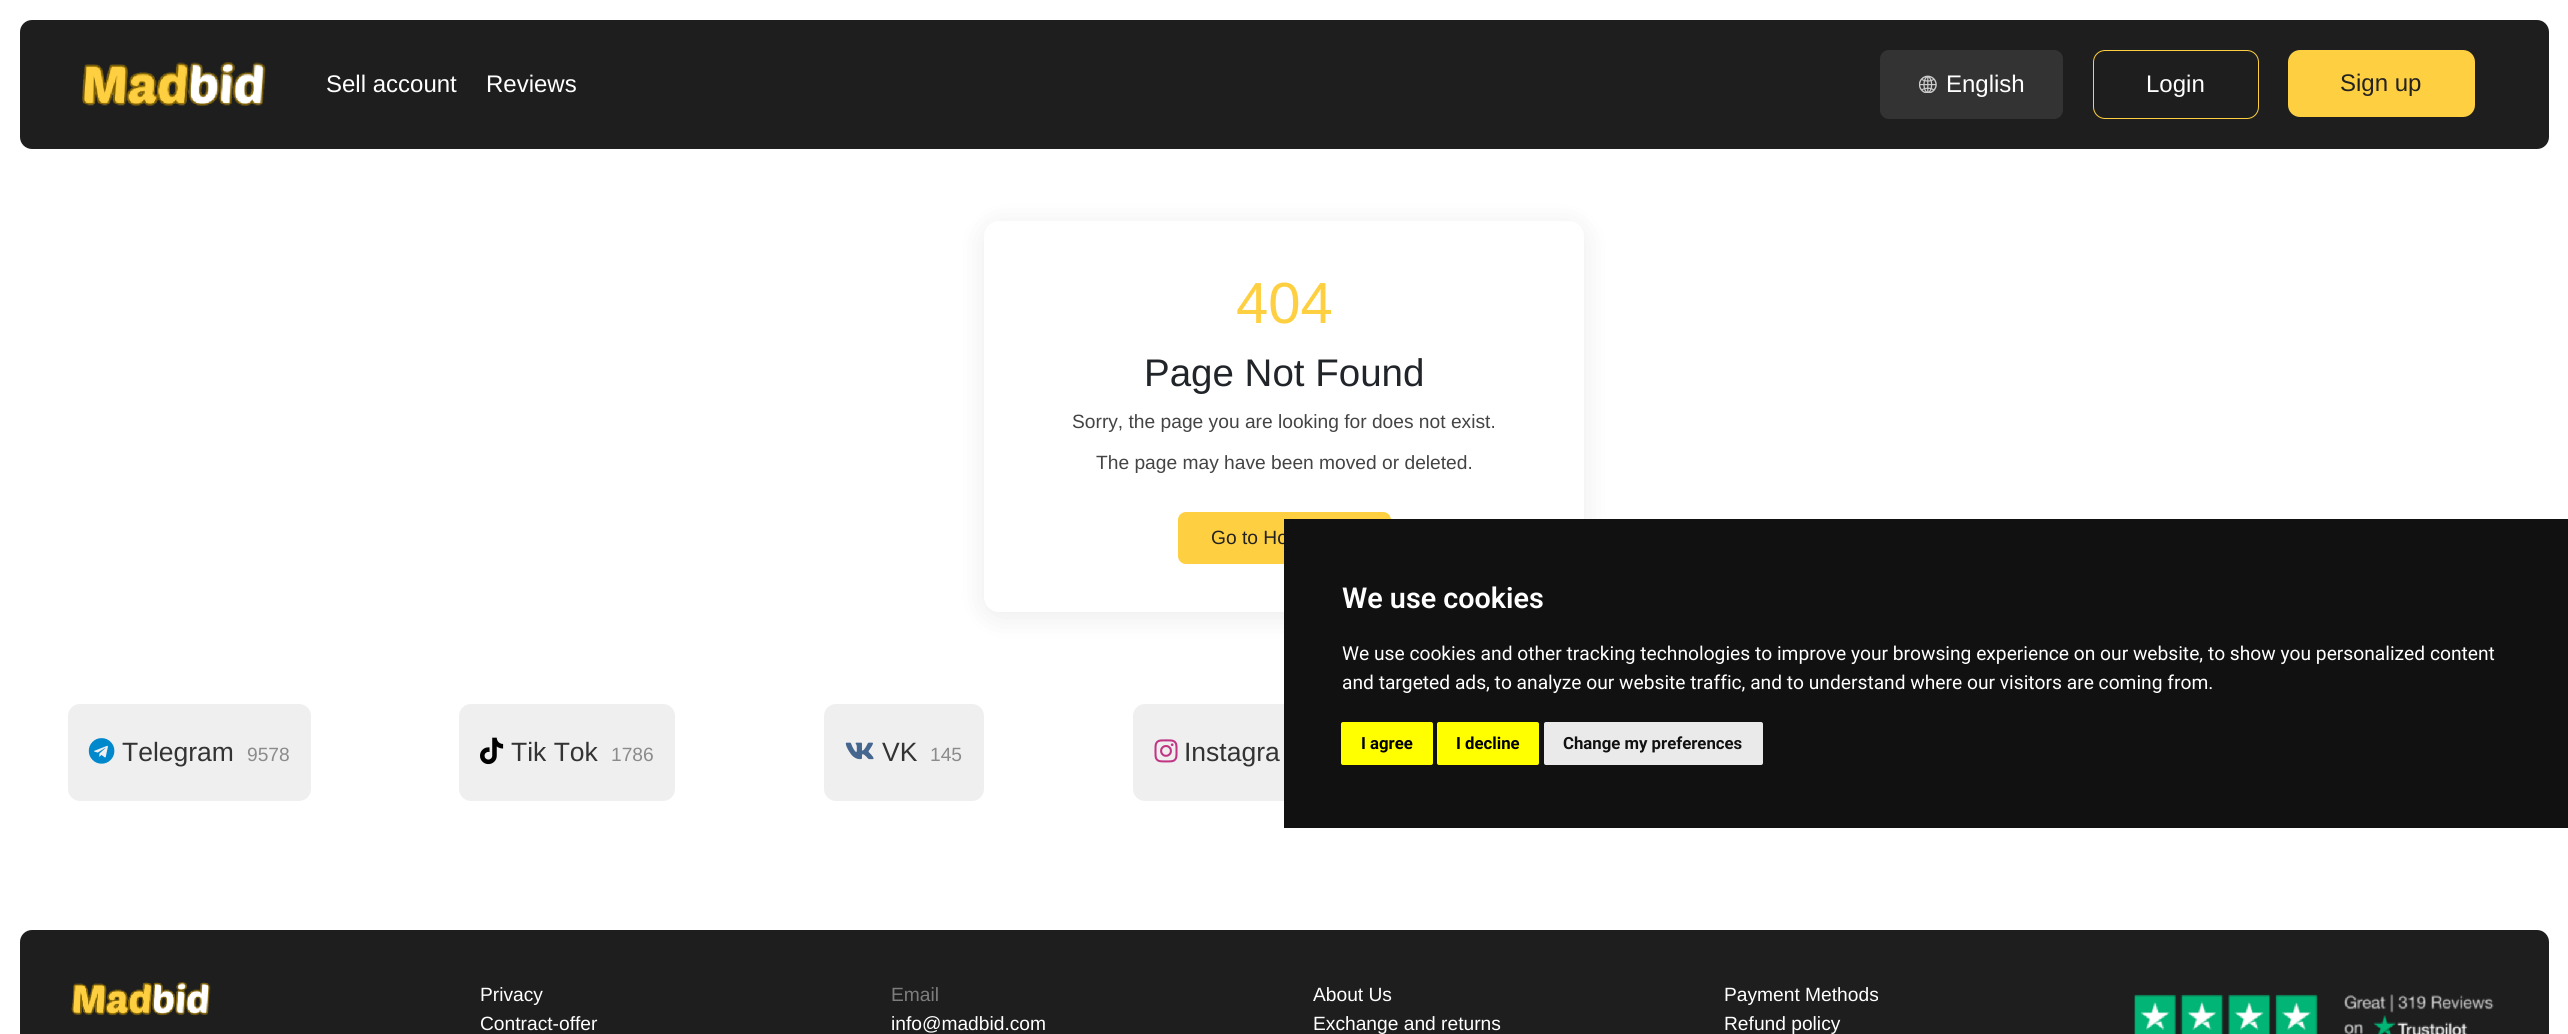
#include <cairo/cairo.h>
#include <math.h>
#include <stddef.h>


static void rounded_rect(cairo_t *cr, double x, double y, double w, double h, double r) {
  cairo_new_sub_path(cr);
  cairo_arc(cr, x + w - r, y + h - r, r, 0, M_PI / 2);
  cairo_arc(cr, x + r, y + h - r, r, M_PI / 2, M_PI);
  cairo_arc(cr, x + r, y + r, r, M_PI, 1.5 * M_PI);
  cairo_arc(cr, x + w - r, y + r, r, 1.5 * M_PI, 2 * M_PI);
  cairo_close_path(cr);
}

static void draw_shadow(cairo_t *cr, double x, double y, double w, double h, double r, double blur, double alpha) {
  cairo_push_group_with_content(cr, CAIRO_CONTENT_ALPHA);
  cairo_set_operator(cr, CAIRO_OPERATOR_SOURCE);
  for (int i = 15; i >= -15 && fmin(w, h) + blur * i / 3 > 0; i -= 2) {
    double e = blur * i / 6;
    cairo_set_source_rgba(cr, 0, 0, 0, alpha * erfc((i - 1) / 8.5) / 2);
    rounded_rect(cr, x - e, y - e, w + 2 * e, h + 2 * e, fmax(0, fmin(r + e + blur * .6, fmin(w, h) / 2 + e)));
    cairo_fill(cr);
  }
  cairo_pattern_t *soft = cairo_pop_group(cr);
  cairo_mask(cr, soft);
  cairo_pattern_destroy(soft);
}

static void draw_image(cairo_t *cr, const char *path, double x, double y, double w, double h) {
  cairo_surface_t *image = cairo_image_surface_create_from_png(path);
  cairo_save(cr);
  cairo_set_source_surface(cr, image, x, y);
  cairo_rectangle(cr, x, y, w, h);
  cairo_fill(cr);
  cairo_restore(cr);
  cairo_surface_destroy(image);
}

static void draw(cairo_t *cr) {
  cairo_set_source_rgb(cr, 1, 1, 1);
  cairo_paint(cr);
  cairo_set_source_rgb(cr, 30 / 255.0, 30 / 255.0, 30 / 255.0);
  rounded_rect(cr, 20, 20, 2529, 129, 12);
  cairo_fill(cr);
  draw_image(cr, "images/1.png", 82, 62, 184, 44);
  cairo_set_source_rgb(cr, 51 / 255.0, 51 / 255.0, 51 / 255.0);
  rounded_rect(cr, 1880, 50, 183, 69, 9);
  cairo_fill(cr);
  draw_image(cr, "images/2.png", 1919, 75, 18, 18);
  rounded_rect(cr, 2093.5, 50.5, 165, 68, 11.5);
  cairo_set_source_rgb(cr, 254 / 255.0, 207 / 255.0, 64 / 255.0);
  cairo_set_line_width(cr, 1);
  cairo_stroke(cr);
  rounded_rect(cr, 2288, 50, 187, 67, 12);
  cairo_fill(cr);
  cairo_set_source_rgb(cr, 0, 0, 0);
  draw_shadow(cr, 984, 225, 600, 392, 15, 14.5, 0.08);
  cairo_set_source_rgb(cr, 1, 1, 1);
  rounded_rect(cr, 984, 221, 600, 391, 15);
  cairo_fill(cr);
  cairo_set_source_rgb(cr, 254 / 255.0, 207 / 255.0, 64 / 255.0);
  rounded_rect(cr, 1178, 512, 213, 52, 8);
  cairo_fill(cr);
  cairo_set_source_rgb(cr, 239 / 255.0, 239 / 255.0, 239 / 255.0);
  rounded_rect(cr, 68, 704, 243, 97, 12);
  cairo_fill(cr);
  draw_image(cr, "images/3.png", 88, 738, 27, 26);
  rounded_rect(cr, 459, 704, 216, 97, 12);
  cairo_fill(cr);
  draw_image(cr, "images/4.png", 480, 737, 24, 28);
  rounded_rect(cr, 824, 704, 160, 97, 12);
  cairo_fill(cr);
  draw_image(cr, "images/5.png", 845, 742, 29, 18);
  rounded_rect(cr, 1133, 704, 235, 97, 12);
  cairo_fill(cr);
  draw_image(cr, "images/6.png", 1154, 739, 24, 24);
  cairo_set_source_rgb(cr, 30 / 255.0, 30 / 255.0, 30 / 255.0);
  rounded_rect(cr, 20, 930, 2529, 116, 12);
  cairo_fill(cr);
  draw_image(cr, "images/7.png", 71, 982, 140, 34);
  draw_image(cr, "images/8.png", 2134, 994, 360, 40);
  cairo_select_font_face(cr, "Liberation Sans", CAIRO_FONT_SLANT_NORMAL, CAIRO_FONT_WEIGHT_NORMAL);
  cairo_set_font_size(cr, 24);
  cairo_set_source_rgb(cr, 1, 1, 1);
  cairo_move_to(cr, 326, 92);
  cairo_show_text(cr, "Sell account");
  cairo_move_to(cr, 486, 92);
  cairo_show_text(cr, "Reviews");
  cairo_move_to(cr, 1946, 92);
  cairo_show_text(cr, "English");
  cairo_move_to(cr, 2146, 92);
  cairo_show_text(cr, "Login");
  cairo_set_source_rgb(cr, 34 / 255.0, 34 / 255.0, 34 / 255.0);
  cairo_move_to(cr, 2340, 91);
  cairo_show_text(cr, "Sign up");
  cairo_set_font_size(cr, 58);
  cairo_set_source_rgb(cr, 254 / 255.0, 207 / 255.0, 64 / 255.0);
  cairo_move_to(cr, 1236, 323);
  cairo_show_text(cr, "404");
  cairo_set_font_size(cr, 38.5);
  cairo_set_source_rgb(cr, 33 / 255.0, 37 / 255.0, 41 / 255.0);
  cairo_move_to(cr, 1144, 386);
  cairo_show_text(cr, "Page Not Found");
  cairo_set_font_size(cr, 19.2);
  cairo_set_source_rgb(cr, 68 / 255.0, 68 / 255.0, 68 / 255.0);
  cairo_move_to(cr, 1072, 428);
  cairo_show_text(cr, "Sorry, the page you are looking for does not exist.");
  cairo_move_to(cr, 1096, 469);
  cairo_show_text(cr, "The page may have been moved or deleted.");
  cairo_set_source_rgb(cr, 34 / 255.0, 34 / 255.0, 34 / 255.0);
  cairo_move_to(cr, 1211, 544);
  cairo_show_text(cr, "Go to Ho");
  cairo_set_font_size(cr, 26.5);
  cairo_set_source_rgb(cr, 51 / 255.0, 51 / 255.0, 51 / 255.0);
  cairo_move_to(cr, 122, 761);
  cairo_show_text(cr, "Telegram");
  cairo_set_font_size(cr, 19.2);
  cairo_set_source_rgb(cr, 139 / 255.0, 139 / 255.0, 139 / 255.0);
  cairo_move_to(cr, 247, 761);
  cairo_show_text(cr, "9578");
  cairo_set_font_size(cr, 26.5);
  cairo_set_source_rgb(cr, 51 / 255.0, 51 / 255.0, 51 / 255.0);
  cairo_move_to(cr, 511, 761);
  cairo_show_text(cr, "Tik Tok");
  cairo_set_font_size(cr, 19.2);
  cairo_set_source_rgb(cr, 139 / 255.0, 139 / 255.0, 139 / 255.0);
  cairo_move_to(cr, 611, 761);
  cairo_show_text(cr, "1786");
  cairo_set_font_size(cr, 26.5);
  cairo_set_source_rgb(cr, 51 / 255.0, 51 / 255.0, 51 / 255.0);
  cairo_move_to(cr, 882, 761);
  cairo_show_text(cr, "VK");
  cairo_set_font_size(cr, 19.2);
  cairo_set_source_rgb(cr, 139 / 255.0, 139 / 255.0, 139 / 255.0);
  cairo_move_to(cr, 930, 761);
  cairo_show_text(cr, "145");
  cairo_set_font_size(cr, 26.5);
  cairo_set_source_rgb(cr, 51 / 255.0, 51 / 255.0, 51 / 255.0);
  cairo_move_to(cr, 1184, 761);
  cairo_show_text(cr, "Instagra");
  cairo_set_source_rgb(cr, 17 / 255.0, 17 / 255.0, 17 / 255.0);
  cairo_rectangle(cr, 1284, 519, 1284, 309);
  cairo_fill(cr);
  cairo_select_font_face(cr, "Roboto SemiBold", CAIRO_FONT_SLANT_NORMAL, CAIRO_FONT_WEIGHT_NORMAL);
  cairo_set_font_size(cr, 28.75);
  cairo_set_source_rgb(cr, 1, 1, 1);
  cairo_move_to(cr, 1342, 608);
  cairo_show_text(cr, "We use cookies");
  cairo_select_font_face(cr, "Roboto", CAIRO_FONT_SLANT_NORMAL, CAIRO_FONT_WEIGHT_NORMAL);
  cairo_set_font_size(cr, 19.2);
  cairo_move_to(cr, 1342, 660);
  cairo_show_text(cr, "We use cookies and other tracking technologies to improve your browsing experience on our website, to show you personalized content");
  cairo_move_to(cr, 1342, 689);
  cairo_show_text(cr, "and targeted ads, to analyze our website traffic, and to understand where our visitors are coming from.");
  cairo_set_source_rgb(cr, 1, 1, 0);
  rounded_rect(cr, 1341, 722, 92, 43, 2);
  cairo_fill(cr);
  cairo_select_font_face(cr, "Roboto", CAIRO_FONT_SLANT_NORMAL, CAIRO_FONT_WEIGHT_BOLD);
  cairo_set_font_size(cr, 16.75);
  cairo_set_source_rgb(cr, 0, 0, 0);
  cairo_move_to(cr, 1361, 749);
  cairo_show_text(cr, "I agree");
  cairo_set_source_rgb(cr, 1, 1, 0);
  rounded_rect(cr, 1437, 722, 102, 43, 2);
  cairo_fill(cr);
  cairo_set_source_rgb(cr, 0, 0, 0);
  cairo_move_to(cr, 1456, 749);
  cairo_show_text(cr, "I decline");
  cairo_set_source_rgb(cr, 234 / 255.0, 234 / 255.0, 234 / 255.0);
  rounded_rect(cr, 1544, 722, 219, 43, 2);
  cairo_fill(cr);
  cairo_set_source_rgb(cr, 17 / 255.0, 17 / 255.0, 17 / 255.0);
  cairo_move_to(cr, 1563, 749);
  cairo_show_text(cr, "Change my preferences");
  cairo_select_font_face(cr, "Liberation Sans", CAIRO_FONT_SLANT_NORMAL, CAIRO_FONT_WEIGHT_NORMAL);
  cairo_set_font_size(cr, 19.2);
  cairo_set_source_rgb(cr, 1, 1, 1);
  cairo_move_to(cr, 480, 1001);
  cairo_show_text(cr, "Privacy");
  cairo_move_to(cr, 480, 1030);
  cairo_show_text(cr, "Contract-offer");
  cairo_set_source_rgb(cr, 125 / 255.0, 125 / 255.0, 125 / 255.0);
  cairo_move_to(cr, 891, 1001);
  cairo_show_text(cr, "Email");
  cairo_set_source_rgb(cr, 1, 1, 1);
  cairo_move_to(cr, 891, 1030);
  cairo_show_text(cr, "info@madbid.com");
  cairo_move_to(cr, 1313, 1001);
  cairo_show_text(cr, "About Us");
  cairo_move_to(cr, 1313, 1030);
  cairo_show_text(cr, "Exchange and returns");
  cairo_move_to(cr, 1724, 1001);
  cairo_show_text(cr, "Payment Methods");
  cairo_move_to(cr, 1724, 1030);
  cairo_show_text(cr, "Refund policy");
}

int main(void) {
  cairo_surface_t *surface = cairo_image_surface_create(CAIRO_FORMAT_RGB24, 2568, 1034);
  cairo_t *cr = cairo_create(surface);
  cairo_font_options_t *options = cairo_font_options_create();
  cairo_font_options_set_hint_metrics(options, CAIRO_HINT_METRICS_OFF);
  cairo_font_options_set_hint_style(options, CAIRO_HINT_STYLE_NONE);
  cairo_set_font_options(cr, options);
  cairo_set_miter_limit(cr, 4);
  draw(cr);
  cairo_surface_write_to_png(surface, "out.png");
  cairo_font_options_destroy(options);
  cairo_destroy(cr);
  cairo_surface_destroy(surface);
  return 0;
}
